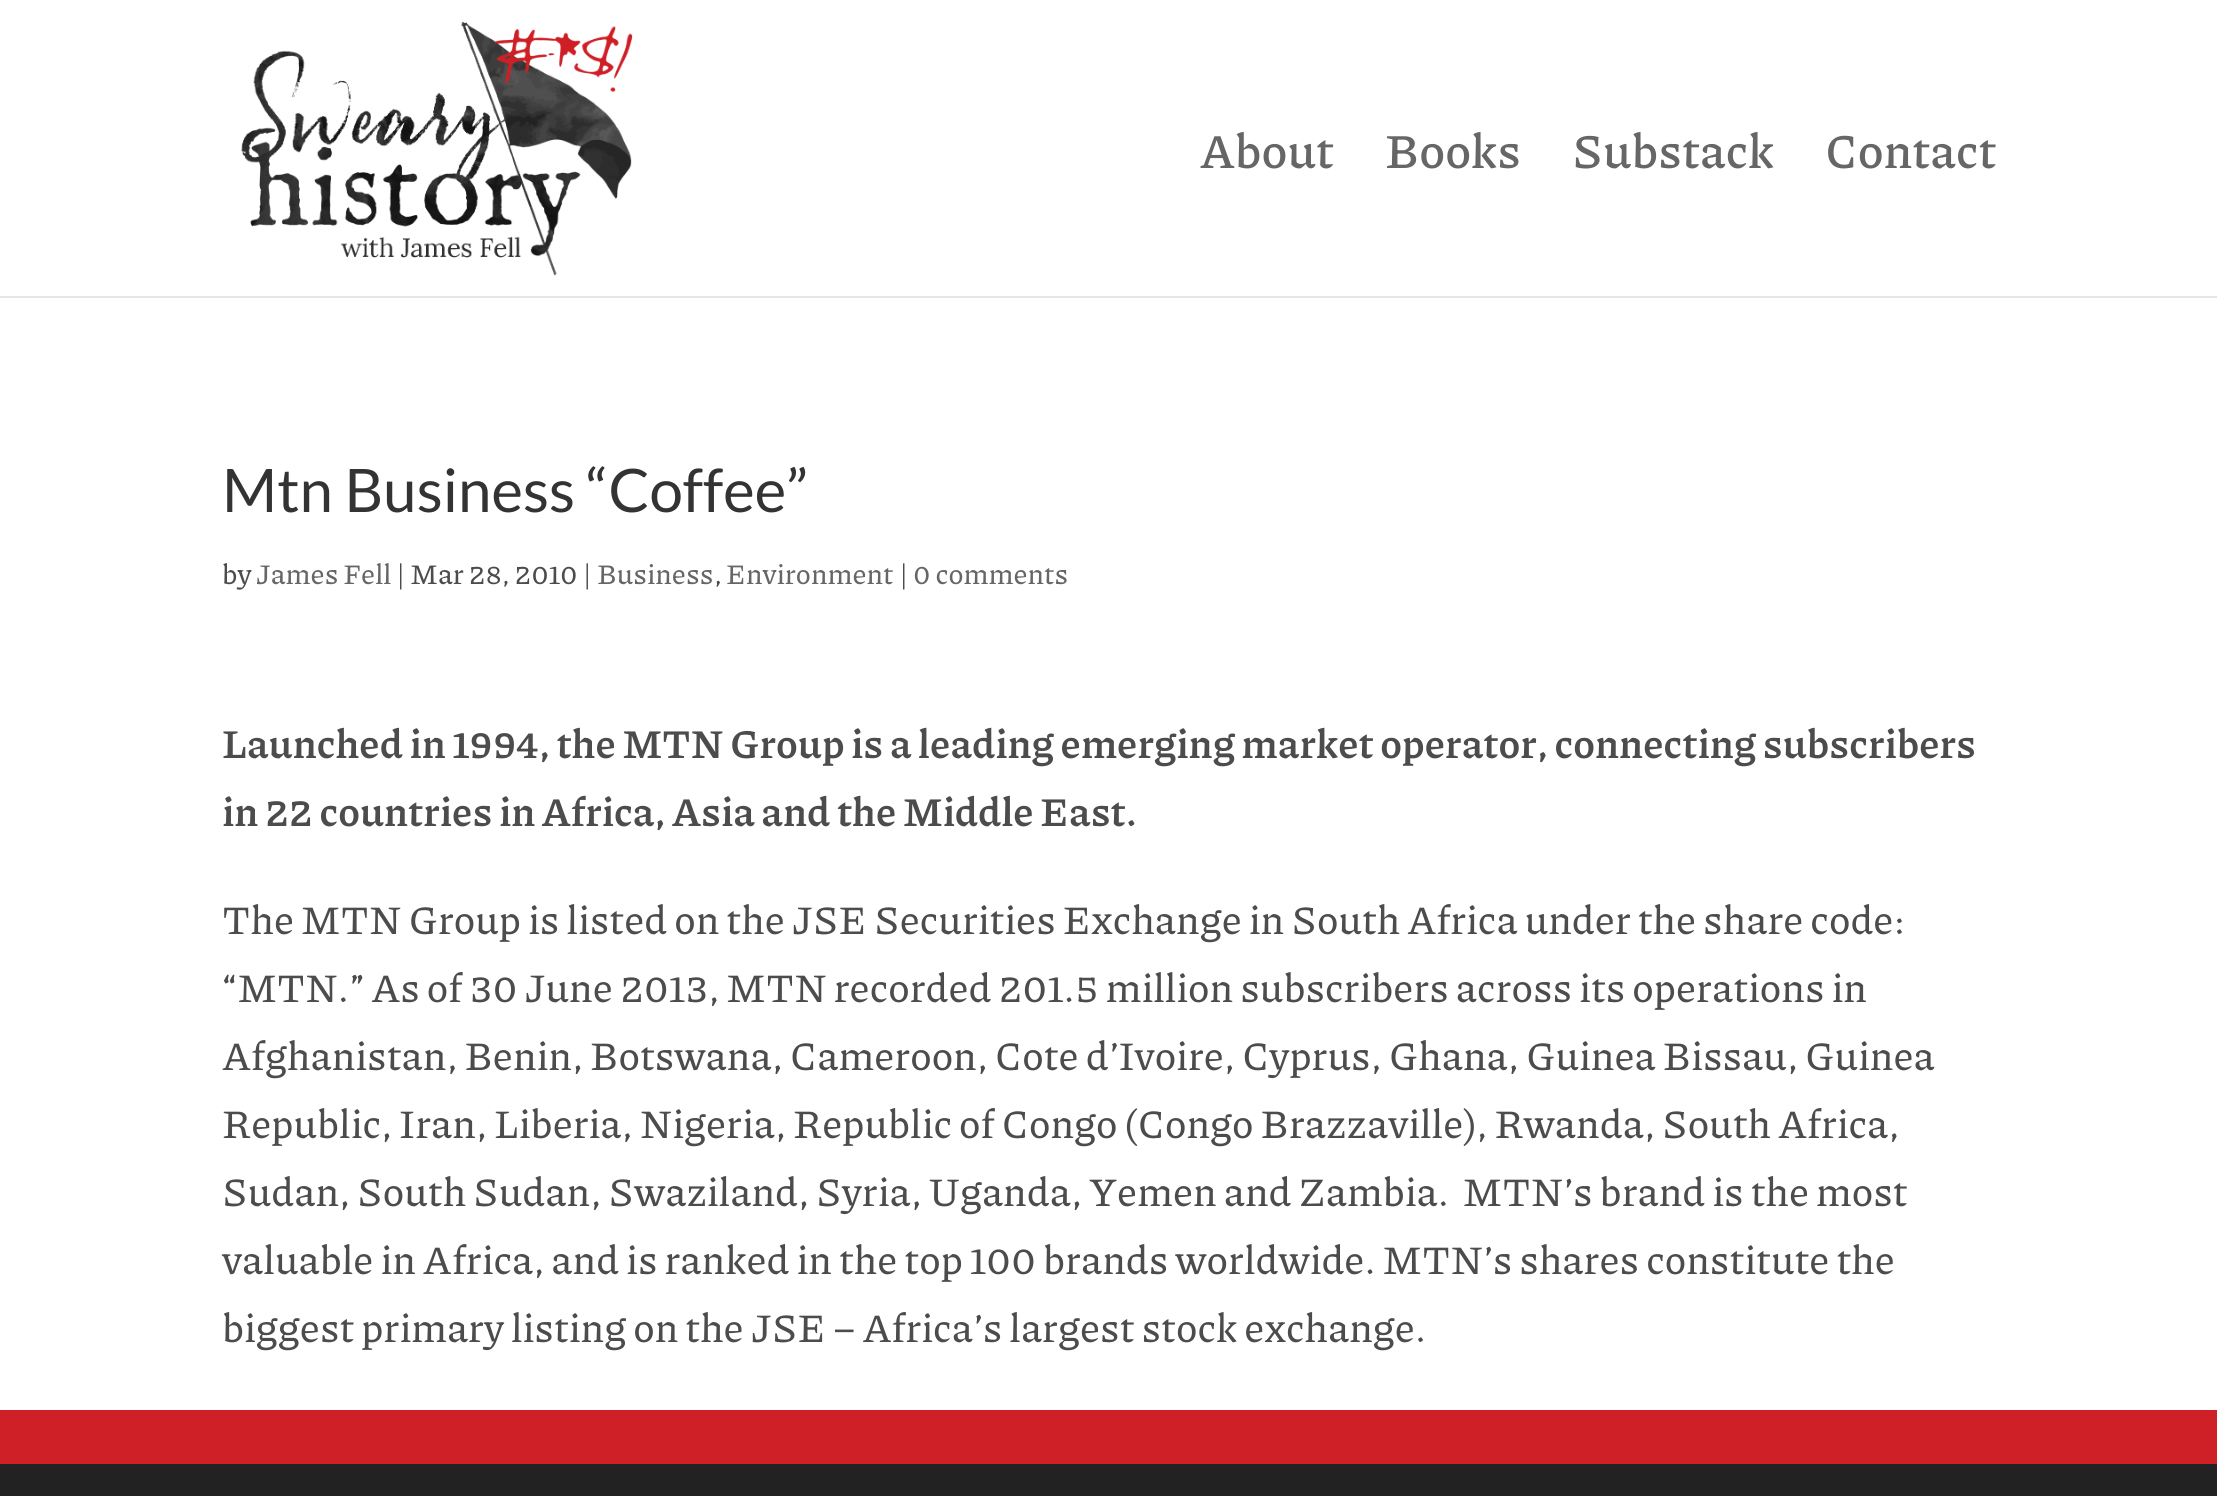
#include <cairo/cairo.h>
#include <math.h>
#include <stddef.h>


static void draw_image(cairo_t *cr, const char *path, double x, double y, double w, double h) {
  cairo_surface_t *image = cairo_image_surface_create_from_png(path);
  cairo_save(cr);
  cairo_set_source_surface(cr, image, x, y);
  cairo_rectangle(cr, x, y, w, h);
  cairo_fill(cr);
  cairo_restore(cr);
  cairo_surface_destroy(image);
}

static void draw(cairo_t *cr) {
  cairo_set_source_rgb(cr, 206 / 255.0, 32 / 255.0, 38 / 255.0);
  cairo_paint(cr);
  cairo_set_source_rgb(cr, 230 / 255.0, 230 / 255.0, 230 / 255.0);
  cairo_rectangle(cr, 0, 296, 2217, 2);
  cairo_fill(cr);
  cairo_set_source_rgb(cr, 1, 1, 1);
  cairo_rectangle(cr, 0, 0, 2217, 296);
  cairo_fill(cr);
  draw_image(cr, "images/1.png", 241, 21, 392, 255);
  cairo_rectangle(cr, 0, 298, 2217, 1112);
  cairo_fill(cr);
  cairo_set_source_rgb(cr, 34 / 255.0, 34 / 255.0, 34 / 255.0);
  cairo_rectangle(cr, 0, 1464, 2217, 32);
  cairo_fill(cr);
  cairo_select_font_face(cr, "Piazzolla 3 Thin", CAIRO_FONT_SLANT_NORMAL, CAIRO_FONT_WEIGHT_NORMAL);
  cairo_set_font_size(cr, 48);
  cairo_set_source_rgb(cr, 102 / 255.0, 102 / 255.0, 102 / 255.0);
  cairo_move_to(cr, 1200, 168);
  cairo_show_text(cr, "About");
  cairo_move_to(cr, 1385, 168);
  cairo_show_text(cr, "Books");
  cairo_move_to(cr, 1572, 168);
  cairo_show_text(cr, "Substack");
  cairo_move_to(cr, 1825, 168);
  cairo_show_text(cr, "Contact");
  cairo_select_font_face(cr, "Lato", CAIRO_FONT_SLANT_NORMAL, CAIRO_FONT_WEIGHT_NORMAL);
  cairo_set_font_size(cr, 60);
  cairo_set_source_rgb(cr, 51 / 255.0, 51 / 255.0, 51 / 255.0);
  cairo_move_to(cr, 222, 512);
  cairo_show_text(cr, "Mtn Business “Coffee”");
  cairo_select_font_face(cr, "Piazzolla Thin", CAIRO_FONT_SLANT_NORMAL, CAIRO_FONT_WEIGHT_NORMAL);
  cairo_set_font_size(cr, 28);
  cairo_set_source_rgb(cr, 76 / 255.0, 76 / 255.0, 76 / 255.0);
  cairo_move_to(cr, 222, 584);
  cairo_show_text(cr, "by");
  cairo_set_source_rgb(cr, 102 / 255.0, 102 / 255.0, 102 / 255.0);
  cairo_move_to(cr, 256, 584);
  cairo_show_text(cr, "James Fell");
  cairo_set_source_rgb(cr, 76 / 255.0, 76 / 255.0, 76 / 255.0);
  cairo_move_to(cr, 396, 584);
  cairo_show_text(cr, "| Mar 28, 2010 |");
  cairo_set_source_rgb(cr, 102 / 255.0, 102 / 255.0, 102 / 255.0);
  cairo_move_to(cr, 597, 584);
  cairo_show_text(cr, "Business");
  cairo_set_source_rgb(cr, 76 / 255.0, 76 / 255.0, 76 / 255.0);
  cairo_move_to(cr, 714, 584);
  cairo_show_text(cr, ",");
  cairo_set_source_rgb(cr, 102 / 255.0, 102 / 255.0, 102 / 255.0);
  cairo_move_to(cr, 726, 584);
  cairo_show_text(cr, "Environment");
  cairo_set_source_rgb(cr, 76 / 255.0, 76 / 255.0, 76 / 255.0);
  cairo_move_to(cr, 899, 584);
  cairo_show_text(cr, "|");
  cairo_set_source_rgb(cr, 102 / 255.0, 102 / 255.0, 102 / 255.0);
  cairo_move_to(cr, 913, 584);
  cairo_show_text(cr, "0 comments");
  cairo_select_font_face(cr, "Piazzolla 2 Thin", CAIRO_FONT_SLANT_NORMAL, CAIRO_FONT_WEIGHT_NORMAL);
  cairo_set_font_size(cr, 40);
  cairo_set_source_rgb(cr, 76 / 255.0, 76 / 255.0, 76 / 255.0);
  cairo_move_to(cr, 222, 758);
  cairo_show_text(cr, "Launched in 1994, the MTN Group is a leading emerging market operator, connecting subscribers");
  cairo_move_to(cr, 222, 826);
  cairo_show_text(cr, "in 22 countries in Africa, Asia and the Middle East.");
  cairo_select_font_face(cr, "Piazzolla Thin", CAIRO_FONT_SLANT_NORMAL, CAIRO_FONT_WEIGHT_NORMAL);
  cairo_move_to(cr, 222, 934);
  cairo_show_text(cr, "The MTN Group is listed on the JSE Securities Exchange in South Africa under the share code:");
  cairo_move_to(cr, 222, 1002);
  cairo_show_text(cr, "“MTN.” As of 30 June 2013, MTN recorded 201.5 million subscribers across its operations in");
  cairo_move_to(cr, 222, 1070);
  cairo_show_text(cr, "Afghanistan, Benin, Botswana, Cameroon, Cote d’Ivoire, Cyprus, Ghana, Guinea Bissau, Guinea");
  cairo_move_to(cr, 222, 1138);
  cairo_show_text(cr, "Republic, Iran, Liberia, Nigeria, Republic of Congo (Congo Brazzaville), Rwanda, South Africa,");
  cairo_move_to(cr, 222, 1206);
  cairo_show_text(cr, "Sudan, South Sudan, Swaziland, Syria, Uganda, Yemen and Zambia.  MTN’s brand is the most");
  cairo_move_to(cr, 222, 1274);
  cairo_show_text(cr, "valuable in Africa, and is ranked in the top 100 brands worldwide. MTN’s shares constitute the");
  cairo_move_to(cr, 222, 1342);
  cairo_show_text(cr, "biggest primary listing on the JSE – Africa’s largest stock exchange.");
}

int main(void) {
  cairo_surface_t *surface = cairo_image_surface_create(CAIRO_FORMAT_RGB24, 2217, 1496);
  cairo_t *cr = cairo_create(surface);
  cairo_font_options_t *options = cairo_font_options_create();
  cairo_font_options_set_hint_metrics(options, CAIRO_HINT_METRICS_OFF);
  cairo_font_options_set_hint_style(options, CAIRO_HINT_STYLE_NONE);
  cairo_set_font_options(cr, options);
  cairo_set_miter_limit(cr, 4);
  draw(cr);
  cairo_surface_write_to_png(surface, "out.png");
  cairo_font_options_destroy(options);
  cairo_destroy(cr);
  cairo_surface_destroy(surface);
  return 0;
}
